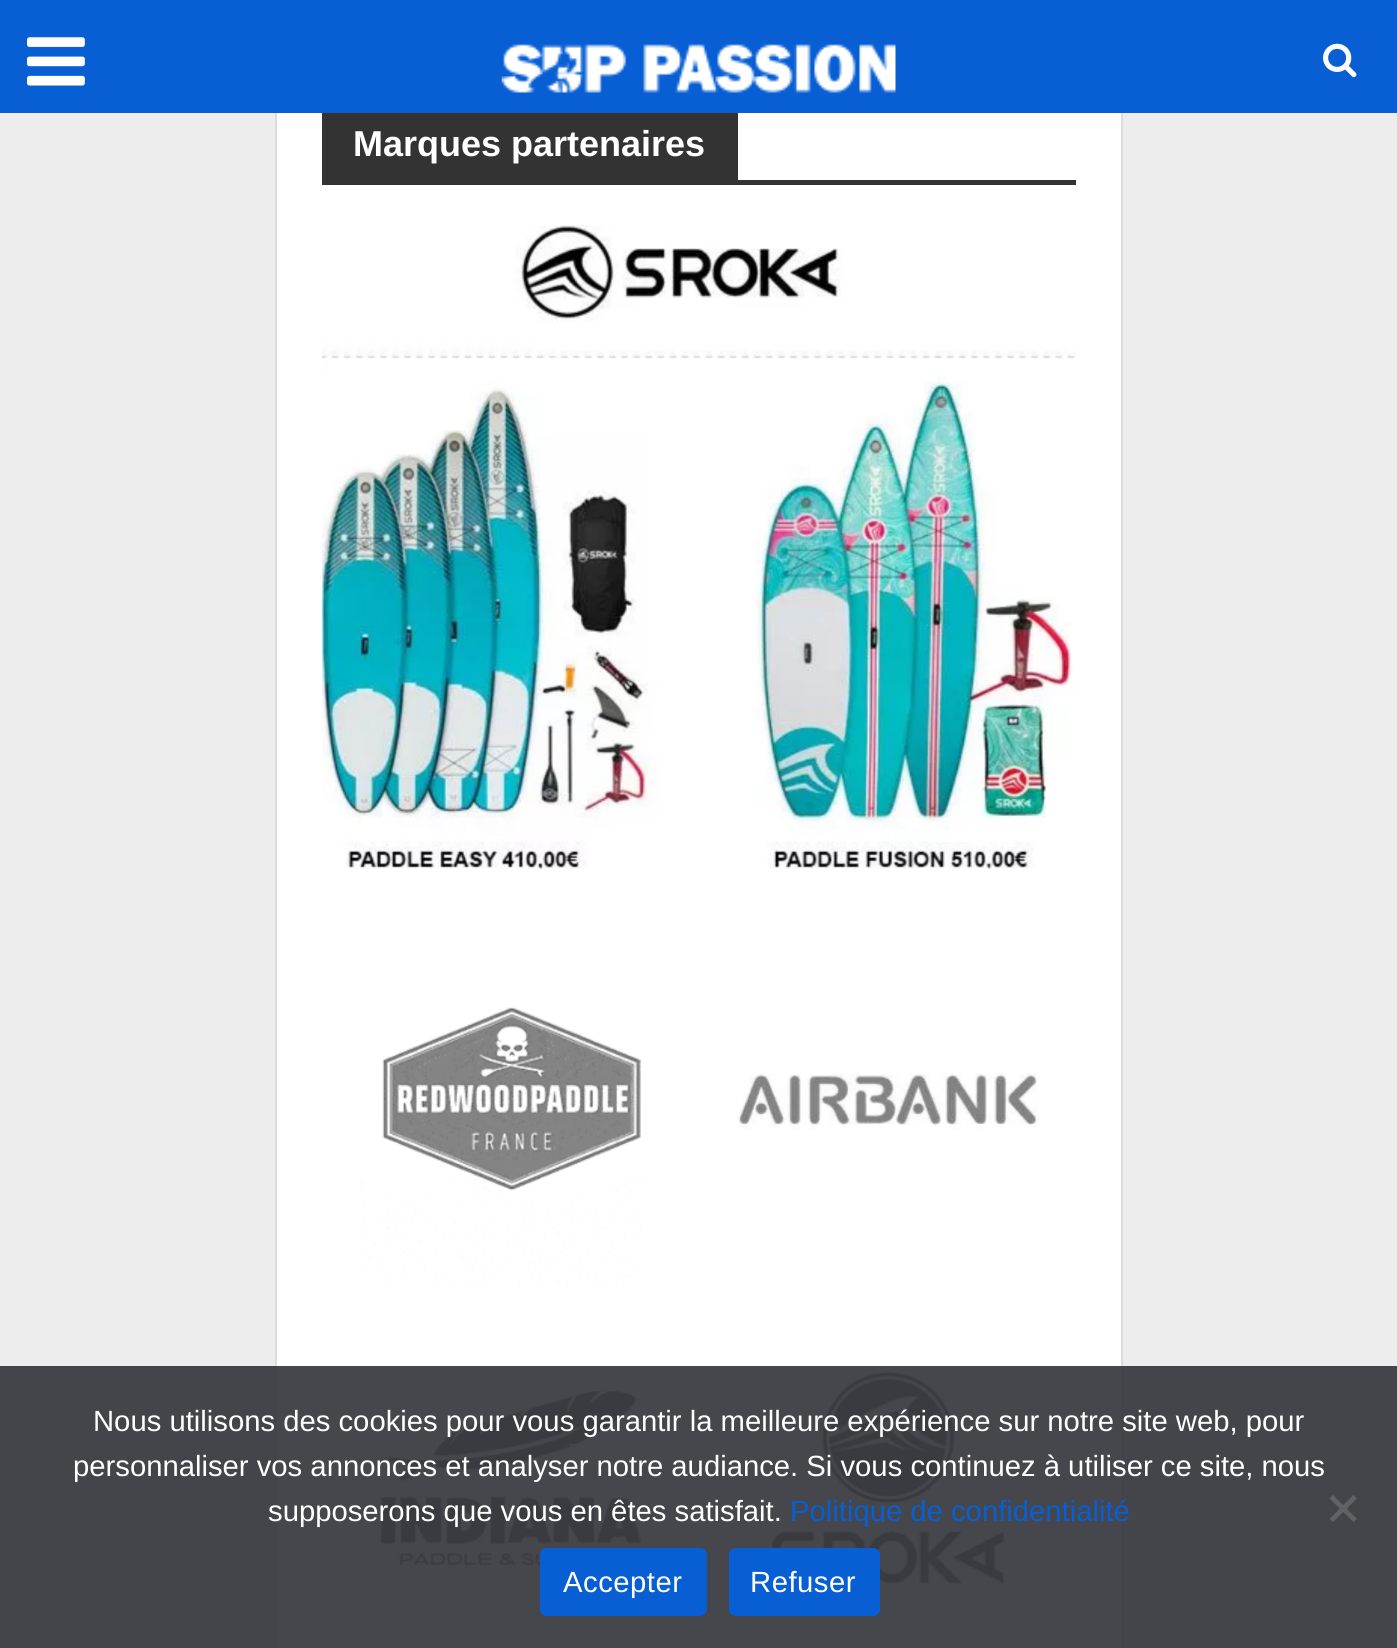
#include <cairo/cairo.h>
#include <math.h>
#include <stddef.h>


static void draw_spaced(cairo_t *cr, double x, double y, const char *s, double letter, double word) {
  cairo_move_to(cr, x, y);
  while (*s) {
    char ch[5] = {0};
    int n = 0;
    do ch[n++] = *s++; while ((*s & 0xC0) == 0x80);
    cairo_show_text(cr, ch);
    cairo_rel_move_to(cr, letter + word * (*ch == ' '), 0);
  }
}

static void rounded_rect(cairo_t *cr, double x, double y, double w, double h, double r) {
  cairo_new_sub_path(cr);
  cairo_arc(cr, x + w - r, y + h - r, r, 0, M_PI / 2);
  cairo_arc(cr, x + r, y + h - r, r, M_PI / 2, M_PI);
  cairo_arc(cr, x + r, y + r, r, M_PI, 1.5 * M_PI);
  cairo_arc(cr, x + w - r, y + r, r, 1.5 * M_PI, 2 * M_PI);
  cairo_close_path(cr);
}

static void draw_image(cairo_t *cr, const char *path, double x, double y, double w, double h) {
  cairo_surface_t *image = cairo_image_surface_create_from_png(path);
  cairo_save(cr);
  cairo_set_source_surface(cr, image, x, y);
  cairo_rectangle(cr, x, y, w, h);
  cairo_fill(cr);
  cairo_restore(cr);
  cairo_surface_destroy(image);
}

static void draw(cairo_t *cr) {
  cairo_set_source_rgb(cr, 237 / 255.0, 237 / 255.0, 237 / 255.0);
  cairo_paint(cr);
  cairo_rectangle(cr, 276, -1, 846, 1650);
  cairo_set_source_rgb(cr, 220 / 255.0, 220 / 255.0, 220 / 255.0);
  cairo_stroke(cr);
  cairo_set_source_rgb(cr, 8 / 255.0, 95 / 255.0, 212 / 255.0);
  cairo_rectangle(cr, 0, 0, 1397, 113);
  cairo_fill(cr);
  draw_image(cr, "images/1.png", 27, 37, 58, 49);
  draw_image(cr, "images/2.png", 501, 44, 395, 49);
  draw_image(cr, "images/3.png", 1323, 43, 34, 35);
  cairo_set_source_rgb(cr, 1, 1, 1);
  cairo_rectangle(cr, 277, 113, 844, 1535);
  cairo_fill(cr);
  cairo_set_source_rgb(cr, 51 / 255.0, 51 / 255.0, 51 / 255.0);
  cairo_rectangle(cr, 322, 113, 416, 67);
  cairo_fill(cr);
  cairo_rectangle(cr, 322, 180, 754, 5);
  cairo_fill(cr);
  draw_image(cr, "images/4.png", 322, 225, 754, 644);
  draw_image(cr, "images/5.png", 360, 1007, 282, 282);
  draw_image(cr, "images/6.png", 738, 1073, 301, 56);
  draw_image(cr, "images/7.png", 377, 1390, 264, 181);
  draw_image(cr, "images/8.png", 770, 1371, 267, 215);
  cairo_set_source_rgba(cr, 50 / 255.0, 50 / 255.0, 58 / 255.0, 0.9);
  cairo_rectangle(cr, 0, 1366, 1397, 282);
  cairo_fill(cr);
  cairo_set_source_rgb(cr, 98 / 255.0, 98 / 255.0, 102 / 255.0);
  cairo_new_path(cr);
  cairo_move_to(cr, 1353.5, 1495);
  cairo_line_to(cr, 1357, 1498.5);
  cairo_line_to(cr, 1333, 1522);
  cairo_line_to(cr, 1329.5, 1519);
  cairo_close_path(cr);
  cairo_fill(cr);
  cairo_new_path(cr);
  cairo_move_to(cr, 1329.5, 1498.5);
  cairo_line_to(cr, 1333, 1495);
  cairo_line_to(cr, 1357, 1519);
  cairo_line_to(cr, 1353.5, 1522);
  cairo_close_path(cr);
  cairo_fill(cr);
  cairo_set_source_rgb(cr, 8 / 255.0, 95 / 255.0, 212 / 255.0);
  rounded_rect(cr, 540, 1548, 167, 68, 7);
  cairo_fill(cr);
  rounded_rect(cr, 729, 1548, 151, 68, 7);
  cairo_fill(cr);
  cairo_select_font_face(cr, "Liberation Sans", CAIRO_FONT_SLANT_NORMAL, CAIRO_FONT_WEIGHT_BOLD);
  cairo_set_font_size(cr, 36);
  cairo_set_source_rgb(cr, 1, 1, 1);
  cairo_move_to(cr, 353, 156);
  cairo_show_text(cr, "Marques partenaires");
  cairo_select_font_face(cr, "Liberation Sans", CAIRO_FONT_SLANT_NORMAL, CAIRO_FONT_WEIGHT_NORMAL);
  cairo_set_font_size(cr, 29.25);
  cairo_move_to(cr, 93, 1431);
  cairo_show_text(cr, "Nous utilisons des cookies pour vous garantir la meilleure expérience sur notre site web, pour");
  cairo_move_to(cr, 73, 1476);
  cairo_show_text(cr, "personnaliser vos annonces et analyser notre audiance. Si vous continuez à utiliser ce site, nous");
  cairo_move_to(cr, 268, 1521);
  cairo_show_text(cr, "supposerons que vous en êtes satisfait.");
  cairo_set_source_rgb(cr, 8 / 255.0, 95 / 255.0, 212 / 255.0);
  cairo_move_to(cr, 790, 1521);
  cairo_show_text(cr, "Politique de confidentialité");
  cairo_set_source_rgb(cr, 1, 1, 1);
  draw_spaced(cr, 563, 1592, "Accepter", 0.5, 0);
  draw_spaced(cr, 750, 1592, "Refuser", 0.5, 0);
}

int main(void) {
  cairo_surface_t *surface = cairo_image_surface_create(CAIRO_FORMAT_RGB24, 1397, 1648);
  cairo_t *cr = cairo_create(surface);
  cairo_font_options_t *options = cairo_font_options_create();
  cairo_font_options_set_hint_metrics(options, CAIRO_HINT_METRICS_OFF);
  cairo_font_options_set_hint_style(options, CAIRO_HINT_STYLE_NONE);
  cairo_set_font_options(cr, options);
  cairo_set_miter_limit(cr, 4);
  draw(cr);
  cairo_surface_write_to_png(surface, "out.png");
  cairo_font_options_destroy(options);
  cairo_destroy(cr);
  cairo_surface_destroy(surface);
  return 0;
}
